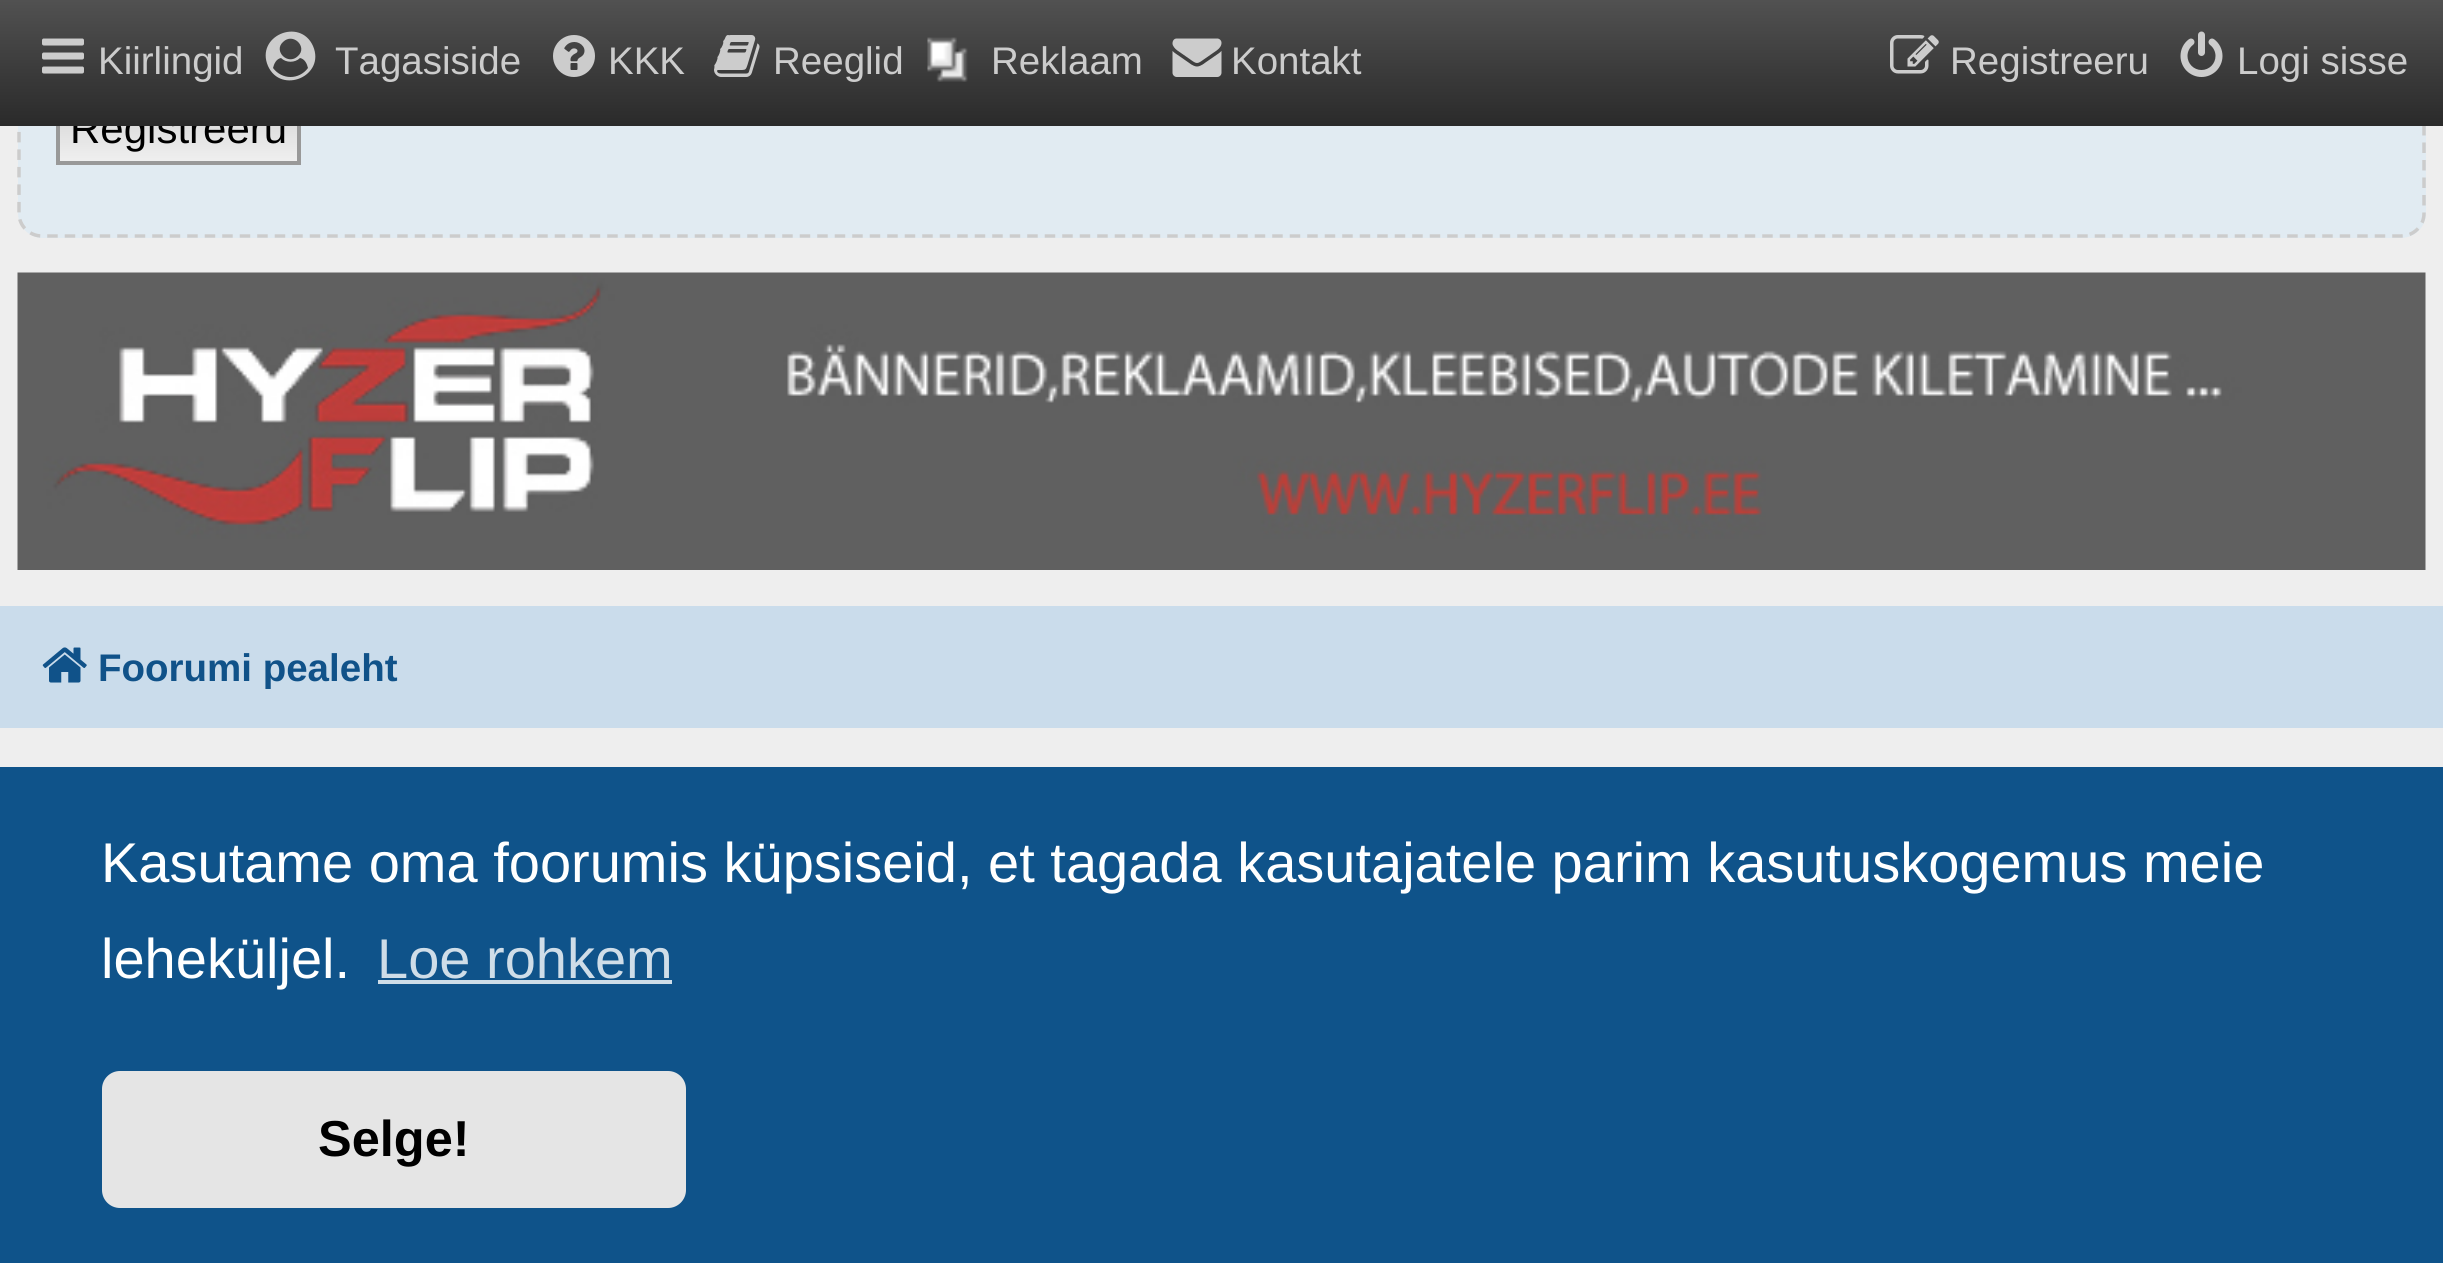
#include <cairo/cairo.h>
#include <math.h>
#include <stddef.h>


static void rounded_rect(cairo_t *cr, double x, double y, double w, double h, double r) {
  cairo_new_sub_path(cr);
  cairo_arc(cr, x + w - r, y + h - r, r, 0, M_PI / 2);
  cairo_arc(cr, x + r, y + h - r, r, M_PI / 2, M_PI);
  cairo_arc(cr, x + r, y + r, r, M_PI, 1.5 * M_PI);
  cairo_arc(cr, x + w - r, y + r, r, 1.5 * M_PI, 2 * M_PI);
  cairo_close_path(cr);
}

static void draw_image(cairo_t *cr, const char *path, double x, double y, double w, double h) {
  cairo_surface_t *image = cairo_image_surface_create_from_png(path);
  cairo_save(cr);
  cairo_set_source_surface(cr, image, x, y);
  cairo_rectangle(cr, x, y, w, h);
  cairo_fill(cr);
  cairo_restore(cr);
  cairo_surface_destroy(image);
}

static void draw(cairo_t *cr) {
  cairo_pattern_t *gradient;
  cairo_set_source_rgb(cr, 238 / 255.0, 238 / 255.0, 238 / 255.0);
  cairo_paint(cr);
  cairo_set_source_rgb(cr, 225 / 255.0, 235 / 255.0, 242 / 255.0);
  rounded_rect(cr, 18, -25, 2408, 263, 25);
  cairo_fill(cr);
  cairo_new_path(cr);
  cairo_move_to(cr, 42, -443);
  cairo_line_to(cr, 2401, -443);
  cairo_curve_to(cr, 2413.5, -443, 2424, -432.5, 2424, -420);
  cairo_line_to(cr, 2424, 213.5);
  cairo_curve_to(cr, 2424, 226, 2413.5, 236, 2401, 236);
  cairo_line_to(cr, 42, 236);
  cairo_curve_to(cr, 29.5, 236, 19, 226, 19, 213.5);
  cairo_line_to(cr, 19, -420);
  cairo_curve_to(cr, 19, -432.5, 29.5, -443, 42, -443);
  cairo_close_path(cr);
  cairo_set_source_rgb(cr, 204 / 255.0, 204 / 255.0, 204 / 255.0);
  cairo_set_line_width(cr, 3.5);
  cairo_set_dash(cr, (double[]){10.5, 7}, 2, 0);
  cairo_stroke(cr);
  gradient = cairo_pattern_create_linear(179, 98, 179, 161);
  cairo_pattern_add_color_stop_rgba(gradient, 0, 210 / 255.0, 210 / 255.0, 210 / 255.0, 1);
  cairo_pattern_add_color_stop_rgba(gradient, 1, 239 / 255.0, 239 / 255.0, 239 / 255.0, 1);
  cairo_set_source(cr, gradient);
  cairo_pattern_destroy(gradient);
  cairo_rectangle(cr, 60, 126, 237, 35);
  cairo_fill(cr);
  cairo_rectangle(cr, 58, 97, 241, 66);
  cairo_set_source_rgb(cr, 153 / 255.0, 153 / 255.0, 153 / 255.0);
  cairo_set_line_width(cr, 4);
  cairo_set_dash(cr, NULL, 0, 0);
  cairo_stroke(cr);
  draw_image(cr, "images/8.png", 17, 272, 2409, 298);
  cairo_set_source_rgb(cr, 202 / 255.0, 220 / 255.0, 235 / 255.0);
  cairo_rectangle(cr, 0, 606, 2443, 122);
  cairo_fill(cr);
  draw_image(cr, "images/9.png", 42, 647, 45, 36);
  cairo_set_source_rgb(cr, 15 / 255.0, 83 / 255.0, 138 / 255.0);
  cairo_rectangle(cr, 0, 767, 2443, 496);
  cairo_fill(cr);
  cairo_set_source_rgb(cr, 207 / 255.0, 221 / 255.0, 232 / 255.0);
  cairo_rectangle(cr, 378, 980, 294, 4);
  cairo_fill(cr);
  cairo_set_source_rgb(cr, 229 / 255.0, 229 / 255.0, 229 / 255.0);
  rounded_rect(cr, 102, 1071, 584, 137, 18);
  cairo_fill(cr);
  cairo_select_font_face(cr, "Liberation Sans", CAIRO_FONT_SLANT_NORMAL, CAIRO_FONT_WEIGHT_NORMAL);
  cairo_set_font_size(cr, 42);
  cairo_set_source_rgb(cr, 0, 0, 0);
  cairo_move_to(cr, 70, 143);
  cairo_show_text(cr, "Registreeru");
  gradient = cairo_pattern_create_linear(1222, 0, 1222, 126);
  cairo_pattern_add_color_stop_rgba(gradient, 0, 81 / 255.0, 81 / 255.0, 81 / 255.0, 1);
  cairo_pattern_add_color_stop_rgba(gradient, 1, 42 / 255.0, 42 / 255.0, 42 / 255.0, 1);
  cairo_set_source(cr, gradient);
  cairo_pattern_destroy(gradient);
  cairo_rectangle(cr, 0, 0, 2443, 126);
  cairo_fill(cr);
  cairo_set_font_size(cr, 38.5);
  cairo_set_source_rgb(cr, 204 / 255.0, 204 / 255.0, 204 / 255.0);
  cairo_move_to(cr, 98, 74);
  cairo_show_text(cr, "Kiirlingid");
  draw_image(cr, "images/1.png", 42, 38, 42, 36);
  cairo_move_to(cr, 1950, 74);
  cairo_show_text(cr, "Registreeru");
  draw_image(cr, "images/6.png", 1890, 35, 49, 39);
  cairo_move_to(cr, 2237, 74);
  cairo_show_text(cr, "Logi sisse");
  draw_image(cr, "images/7.png", 2180, 31, 43, 46);
  cairo_move_to(cr, 1231, 74);
  cairo_show_text(cr, "Kontakt");
  draw_image(cr, "images/5.png", 1172, 38, 50, 39);
  cairo_move_to(cr, 991, 74);
  cairo_show_text(cr, "Reklaam");
  draw_image(cr, "images/4.png", 927, 37, 41, 45);
  cairo_move_to(cr, 773, 74);
  cairo_show_text(cr, "Reeglid");
  draw_image(cr, "images/3.png", 714, 35, 46, 42);
  cairo_move_to(cr, 608, 74);
  cairo_show_text(cr, "KKK");
  draw_image(cr, "images/2.png", 553, 35, 42, 42);
  cairo_move_to(cr, 335, 74);
  cairo_show_text(cr, "Tagasiside");
  cairo_new_path(cr);
  cairo_move_to(cr, 308, 68);
  cairo_curve_to(cr, 307, 64, 305, 59, 300, 58);
  cairo_curve_to(cr, 295, 63, 286, 63, 281, 58);
  cairo_curve_to(cr, 276, 59, 274, 64, 273, 68);
  cairo_curve_to(cr, 282, 80, 299, 80, 308, 68);
  cairo_close_path(cr);
  cairo_move_to(cr, 298, 56);
  cairo_curve_to(cr, 308, 47, 293, 32, 283, 42);
  cairo_curve_to(cr, 273, 51, 288, 66, 298, 56);
  cairo_close_path(cr);
  cairo_move_to(cr, 313, 46);
  cairo_curve_to(cr, 326, 76, 281, 95, 268, 66);
  cairo_curve_to(cr, 255, 36, 300, 17, 313, 46);
  cairo_close_path(cr);
  cairo_fill(cr);
  cairo_select_font_face(cr, "Liberation Sans", CAIRO_FONT_SLANT_NORMAL, CAIRO_FONT_WEIGHT_BOLD);
  cairo_set_source_rgb(cr, 16 / 255.0, 82 / 255.0, 137 / 255.0);
  cairo_move_to(cr, 98, 681);
  cairo_show_text(cr, "Foorumi pealeht");
  cairo_select_font_face(cr, "Liberation Sans", CAIRO_FONT_SLANT_NORMAL, CAIRO_FONT_WEIGHT_NORMAL);
  cairo_set_font_size(cr, 56);
  cairo_set_source_rgb(cr, 1, 1, 1);
  cairo_move_to(cr, 101, 882);
  cairo_show_text(cr, "Kasutame oma foorumis küpsiseid, et tagada kasutajatele parim kasutuskogemus meie");
  cairo_move_to(cr, 101, 978);
  cairo_show_text(cr, "leheküljel.");
  cairo_set_source_rgb(cr, 207 / 255.0, 221 / 255.0, 232 / 255.0);
  cairo_move_to(cr, 377, 978);
  cairo_show_text(cr, "Loe rohkem");
  cairo_select_font_face(cr, "Liberation Sans", CAIRO_FONT_SLANT_NORMAL, CAIRO_FONT_WEIGHT_BOLD);
  cairo_set_font_size(cr, 50.5);
  cairo_set_source_rgb(cr, 0, 0, 0);
  cairo_move_to(cr, 318, 1156);
  cairo_show_text(cr, "Selge!");
}

int main(void) {
  cairo_surface_t *surface = cairo_image_surface_create(CAIRO_FORMAT_RGB24, 2443, 1263);
  cairo_t *cr = cairo_create(surface);
  cairo_font_options_t *options = cairo_font_options_create();
  cairo_font_options_set_hint_metrics(options, CAIRO_HINT_METRICS_OFF);
  cairo_font_options_set_hint_style(options, CAIRO_HINT_STYLE_NONE);
  cairo_set_font_options(cr, options);
  cairo_set_miter_limit(cr, 4);
  draw(cr);
  cairo_surface_write_to_png(surface, "out.png");
  cairo_font_options_destroy(options);
  cairo_destroy(cr);
  cairo_surface_destroy(surface);
  return 0;
}
